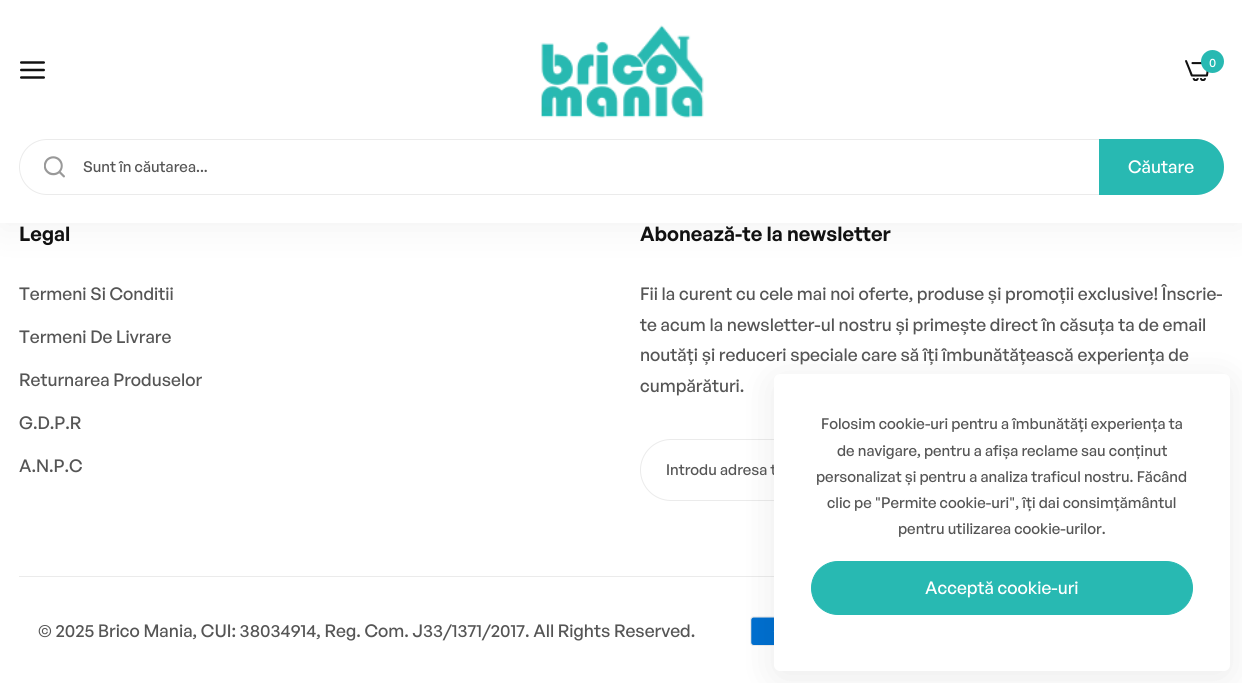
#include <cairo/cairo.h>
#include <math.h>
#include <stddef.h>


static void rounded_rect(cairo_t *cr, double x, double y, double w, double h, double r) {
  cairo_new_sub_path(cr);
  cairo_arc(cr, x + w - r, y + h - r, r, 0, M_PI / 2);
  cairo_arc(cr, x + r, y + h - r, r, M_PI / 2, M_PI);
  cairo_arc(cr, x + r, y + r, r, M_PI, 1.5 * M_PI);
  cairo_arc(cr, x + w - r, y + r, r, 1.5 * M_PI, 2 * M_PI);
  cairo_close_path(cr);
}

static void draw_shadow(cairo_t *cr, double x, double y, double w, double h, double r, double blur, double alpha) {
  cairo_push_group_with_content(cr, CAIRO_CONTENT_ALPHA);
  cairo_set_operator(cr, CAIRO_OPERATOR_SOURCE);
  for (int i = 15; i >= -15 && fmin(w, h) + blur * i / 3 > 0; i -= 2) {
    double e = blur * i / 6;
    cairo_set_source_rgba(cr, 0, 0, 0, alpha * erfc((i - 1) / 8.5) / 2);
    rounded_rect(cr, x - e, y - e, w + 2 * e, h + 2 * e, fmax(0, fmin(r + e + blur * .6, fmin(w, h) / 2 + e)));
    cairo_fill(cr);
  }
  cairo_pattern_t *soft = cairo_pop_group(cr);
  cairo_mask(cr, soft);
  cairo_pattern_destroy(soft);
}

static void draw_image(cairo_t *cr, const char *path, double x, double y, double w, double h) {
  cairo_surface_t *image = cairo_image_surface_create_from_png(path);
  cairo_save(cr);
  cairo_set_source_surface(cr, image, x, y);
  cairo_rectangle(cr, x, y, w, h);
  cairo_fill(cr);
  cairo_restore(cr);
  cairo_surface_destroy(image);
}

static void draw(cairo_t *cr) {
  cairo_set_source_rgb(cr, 1, 1, 1);
  cairo_paint(cr);
  cairo_set_source_rgb(cr, 0, 0, 0);
  draw_shadow(cr, 0, 6, 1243, 223, 0, 19, 0.05);
  cairo_set_source_rgb(cr, 1, 1, 1);
  cairo_rectangle(cr, 0, 0, 1242, 223);
  cairo_fill(cr);
  draw_image(cr, "images/1.png", 20, 61, 25, 18);
  draw_image(cr, "images/2.png", 541, 25, 163, 93);
  draw_image(cr, "images/3.png", 1185, 60, 24, 21);
  cairo_set_source_rgb(cr, 40 / 255.0, 185 / 255.0, 178 / 255.0);
  cairo_arc(cr, 1212.5, 61.5, 11.5, 0, 2 * M_PI);
  cairo_fill(cr);
  rounded_rect(cr, 19.5, 139.5, 1204, 55, 27.5);
  cairo_set_source_rgb(cr, 235 / 255.0, 235 / 255.0, 235 / 255.0);
  cairo_set_line_width(cr, 1);
  cairo_stroke(cr);
  draw_image(cr, "images/4.png", 44, 156, 21, 22);
  cairo_set_source_rgb(cr, 40 / 255.0, 185 / 255.0, 178 / 255.0);
  cairo_new_path(cr);
  cairo_move_to(cr, 1099, 139);
  cairo_line_to(cr, 1196, 139);
  cairo_curve_to(cr, 1211.5, 139, 1224, 151.5, 1224, 167);
  cairo_curve_to(cr, 1224, 182.5, 1211.5, 195, 1196, 195);
  cairo_line_to(cr, 1099, 195);
  cairo_close_path(cr);
  cairo_fill(cr);
  rounded_rect(cr, 640.5, 439.5, 360, 61, 30.5);
  cairo_set_source_rgb(cr, 235 / 255.0, 235 / 255.0, 235 / 255.0);
  cairo_stroke(cr);
  cairo_rectangle(cr, 19, 576, 755, 1);
  cairo_fill(cr);
  draw_image(cr, "images/5.png", 750, 616, 24, 30);
  cairo_set_source_rgb(cr, 0, 0, 0);
  draw_shadow(cr, 774, 380, 456, 298, 6, 19, 0.08);
  cairo_select_font_face(cr, "General Sans Medium", CAIRO_FONT_SLANT_NORMAL, CAIRO_FONT_WEIGHT_NORMAL);
  cairo_set_font_size(cr, 12);
  cairo_set_source_rgb(cr, 1, 1, 1);
  cairo_move_to(cr, 1209, 67);
  cairo_show_text(cr, "0");
  cairo_set_font_size(cr, 15);
  cairo_set_source_rgb(cr, 85 / 255.0, 85 / 255.0, 85 / 255.0);
  cairo_move_to(cr, 83, 172);
  cairo_show_text(cr, "Sunt în căutarea...");
  cairo_set_font_size(cr, 17.5);
  cairo_set_source_rgb(cr, 1, 1, 1);
  cairo_move_to(cr, 1128, 173);
  cairo_show_text(cr, "Căutare");
  cairo_select_font_face(cr, "General Sans SemiBold", CAIRO_FONT_SLANT_NORMAL, CAIRO_FONT_WEIGHT_NORMAL);
  cairo_set_font_size(cr, 20);
  cairo_set_source_rgb(cr, 17 / 255.0, 17 / 255.0, 17 / 255.0);
  cairo_move_to(cr, 19, 241);
  cairo_show_text(cr, "Legal");
  cairo_select_font_face(cr, "General Sans Medium", CAIRO_FONT_SLANT_NORMAL, CAIRO_FONT_WEIGHT_NORMAL);
  cairo_set_font_size(cr, 17.5);
  cairo_set_source_rgb(cr, 85 / 255.0, 85 / 255.0, 85 / 255.0);
  cairo_move_to(cr, 19, 300);
  cairo_show_text(cr, "Termeni Si Conditii");
  cairo_move_to(cr, 19, 343);
  cairo_show_text(cr, "Termeni De Livrare");
  cairo_move_to(cr, 19, 386);
  cairo_show_text(cr, "Returnarea Produselor");
  cairo_move_to(cr, 19, 429);
  cairo_show_text(cr, "G.D.P.R");
  cairo_move_to(cr, 19, 472);
  cairo_show_text(cr, "A.N.P.C");
  cairo_select_font_face(cr, "General Sans SemiBold", CAIRO_FONT_SLANT_NORMAL, CAIRO_FONT_WEIGHT_NORMAL);
  cairo_set_font_size(cr, 20);
  cairo_set_source_rgb(cr, 17 / 255.0, 17 / 255.0, 17 / 255.0);
  cairo_move_to(cr, 640, 241);
  cairo_show_text(cr, "Abonează-te la newsletter");
  cairo_select_font_face(cr, "General Sans Medium", CAIRO_FONT_SLANT_NORMAL, CAIRO_FONT_WEIGHT_NORMAL);
  cairo_set_font_size(cr, 17.5);
  cairo_set_source_rgb(cr, 85 / 255.0, 85 / 255.0, 85 / 255.0);
  cairo_move_to(cr, 640, 300);
  cairo_show_text(cr, "Fii la curent cu cele mai noi oferte, produse și promoții exclusive! Înscrie-");
  cairo_move_to(cr, 640, 331);
  cairo_show_text(cr, "te acum la newsletter-ul nostru și primește direct în căsuța ta de email");
  cairo_move_to(cr, 640, 361);
  cairo_show_text(cr, "noutăți și reduceri speciale care să îți îmbunătățească experiența de");
  cairo_move_to(cr, 640, 392);
  cairo_show_text(cr, "cumpărături.");
  cairo_set_font_size(cr, 15);
  cairo_move_to(cr, 666, 475);
  cairo_show_text(cr, "Introdu adresa t");
  cairo_set_font_size(cr, 17.5);
  cairo_move_to(cr, 38, 637);
  cairo_show_text(cr, "© 2025 Brico Mania, CUI: 38034914, Reg. Com. J33/1371/2017. All Rights Reserved.");
  cairo_set_source_rgb(cr, 1, 1, 1);
  rounded_rect(cr, 774, 374, 456, 297, 6);
  cairo_fill(cr);
  cairo_set_font_size(cr, 15);
  cairo_set_source_rgb(cr, 85 / 255.0, 85 / 255.0, 85 / 255.0);
  cairo_move_to(cr, 821, 429);
  cairo_show_text(cr, "Folosim cookie-uri pentru a îmbunătăți experiența ta");
  cairo_move_to(cr, 837, 456);
  cairo_show_text(cr, "de navigare, pentru a afișa reclame sau conținut");
  cairo_move_to(cr, 816, 482);
  cairo_show_text(cr, "personalizat și pentru a analiza traficul nostru. Făcând");
  cairo_move_to(cr, 827, 508);
  cairo_show_text(cr, "clic pe \"Permite cookie-uri\", îți dai consimțământul");
  cairo_move_to(cr, 898, 534);
  cairo_show_text(cr, "pentru utilizarea cookie-urilor.");
  cairo_set_source_rgb(cr, 40 / 255.0, 185 / 255.0, 178 / 255.0);
  rounded_rect(cr, 811.5, 561.5, 381, 53, 26.5);
  cairo_fill_preserve(cr);
  cairo_stroke(cr);
  cairo_set_font_size(cr, 17.5);
  cairo_set_source_rgb(cr, 1, 1, 1);
  cairo_move_to(cr, 925, 594);
  cairo_show_text(cr, "Acceptă cookie-uri");
}

int main(void) {
  cairo_surface_t *surface = cairo_image_surface_create(CAIRO_FORMAT_RGB24, 1242, 683);
  cairo_t *cr = cairo_create(surface);
  cairo_font_options_t *options = cairo_font_options_create();
  cairo_font_options_set_hint_metrics(options, CAIRO_HINT_METRICS_OFF);
  cairo_font_options_set_hint_style(options, CAIRO_HINT_STYLE_NONE);
  cairo_set_font_options(cr, options);
  cairo_set_miter_limit(cr, 4);
  draw(cr);
  cairo_surface_write_to_png(surface, "out.png");
  cairo_font_options_destroy(options);
  cairo_destroy(cr);
  cairo_surface_destroy(surface);
  return 0;
}
